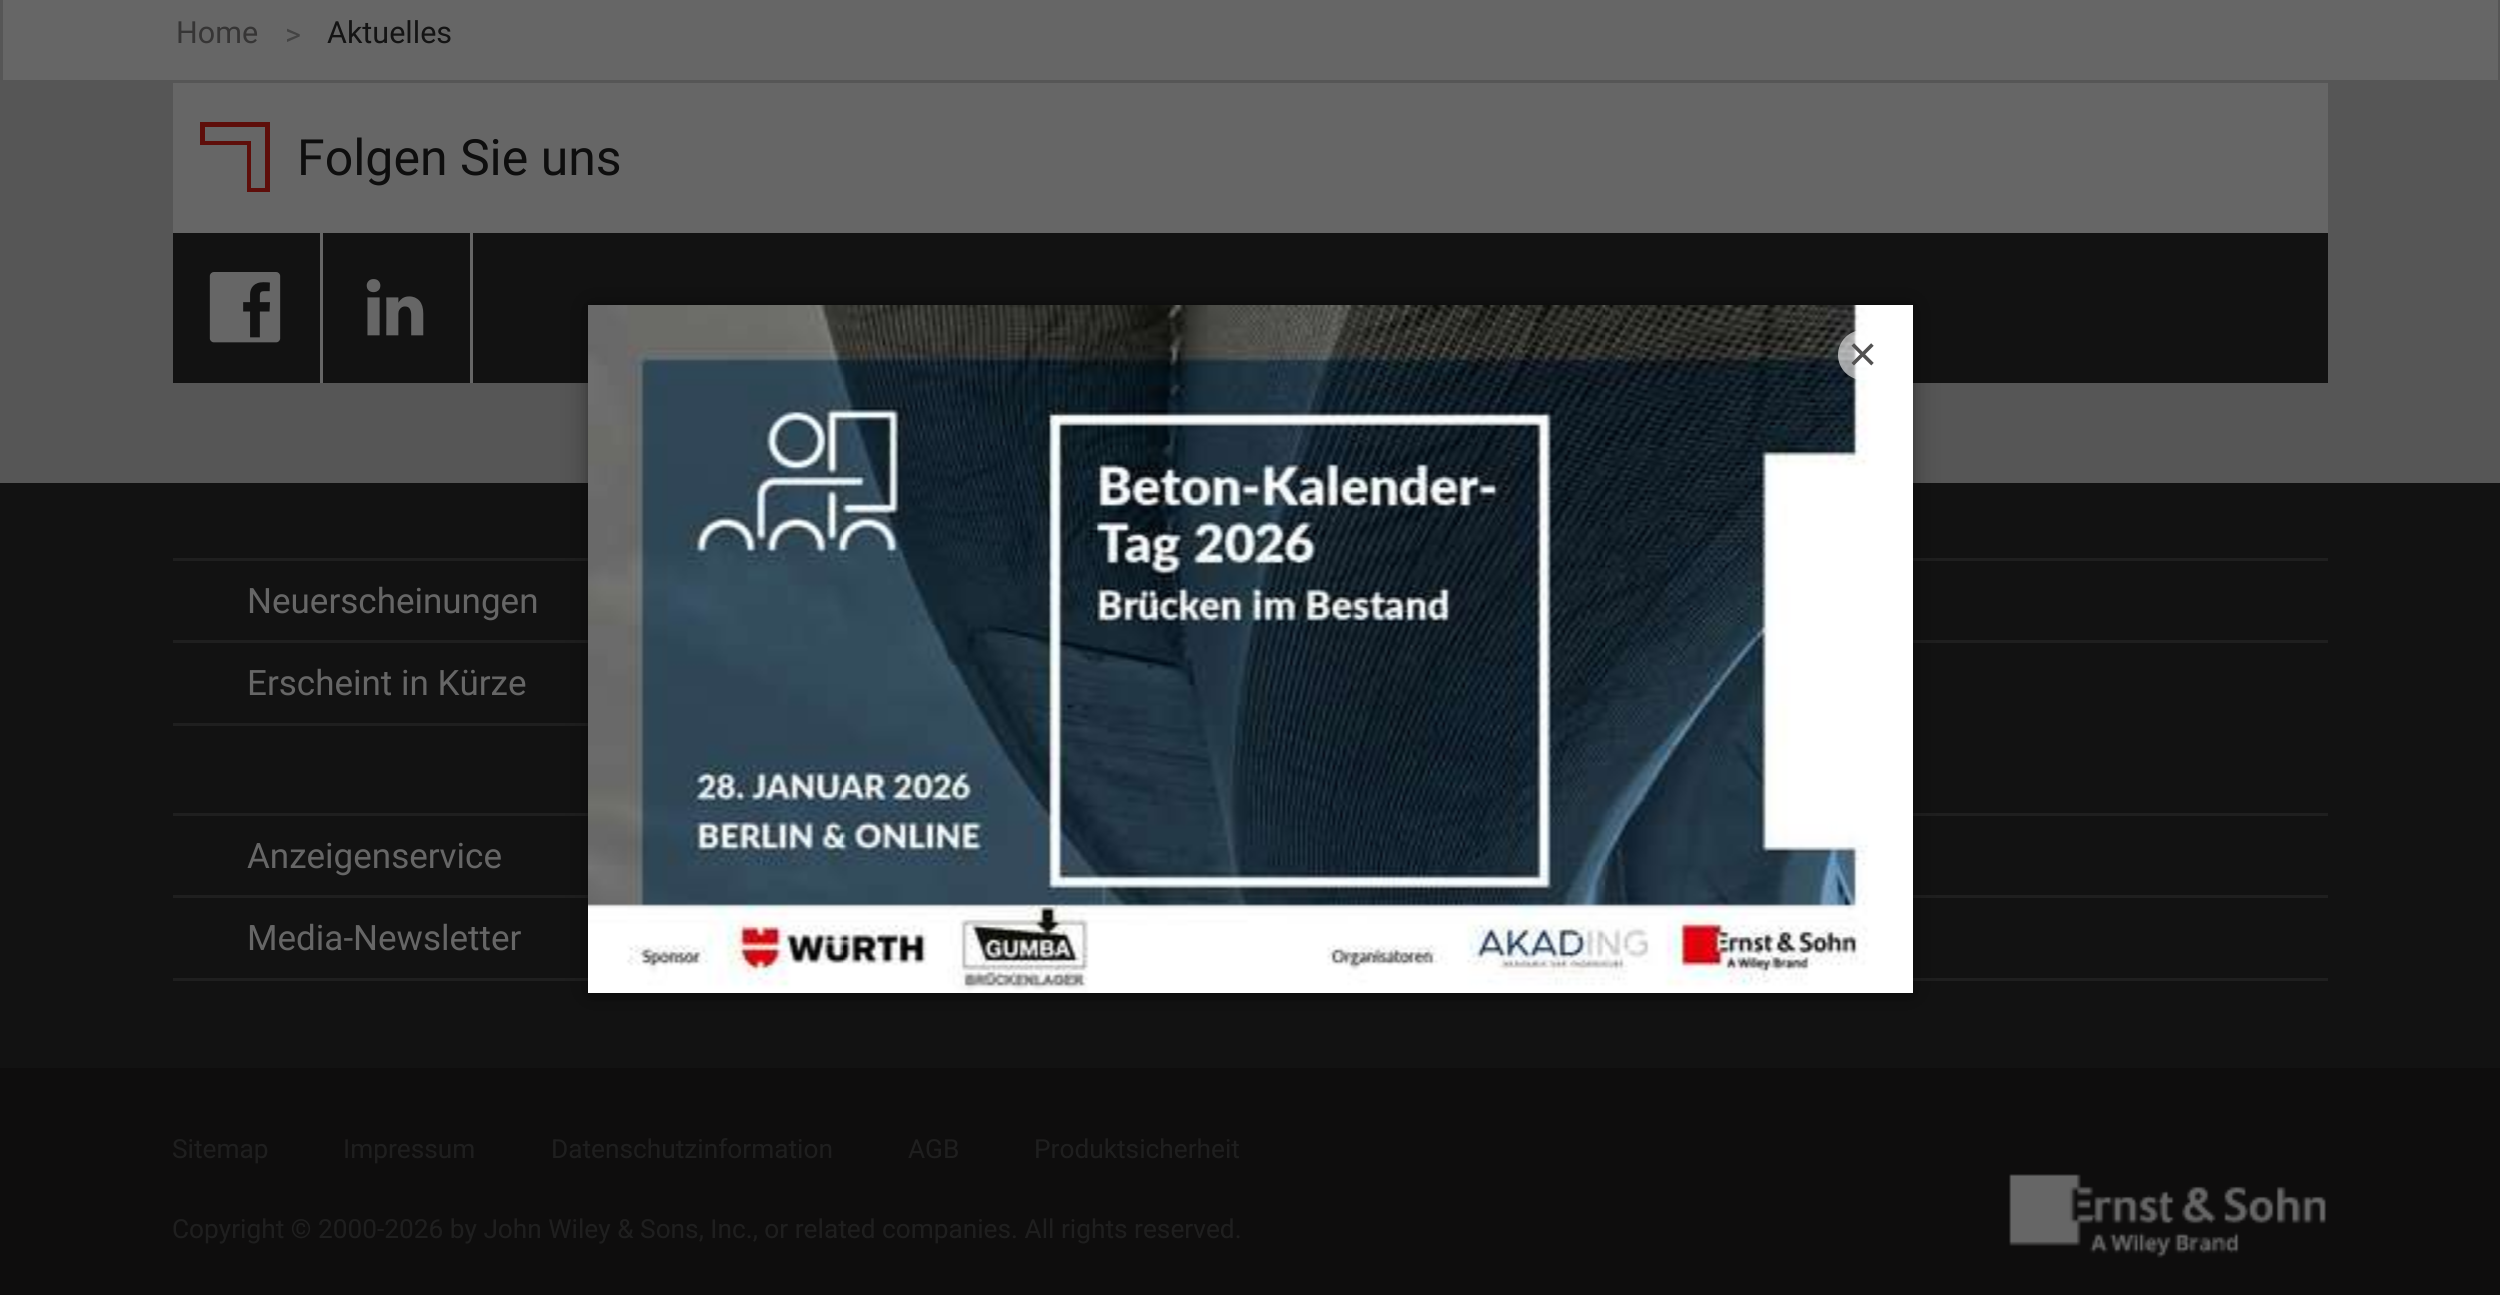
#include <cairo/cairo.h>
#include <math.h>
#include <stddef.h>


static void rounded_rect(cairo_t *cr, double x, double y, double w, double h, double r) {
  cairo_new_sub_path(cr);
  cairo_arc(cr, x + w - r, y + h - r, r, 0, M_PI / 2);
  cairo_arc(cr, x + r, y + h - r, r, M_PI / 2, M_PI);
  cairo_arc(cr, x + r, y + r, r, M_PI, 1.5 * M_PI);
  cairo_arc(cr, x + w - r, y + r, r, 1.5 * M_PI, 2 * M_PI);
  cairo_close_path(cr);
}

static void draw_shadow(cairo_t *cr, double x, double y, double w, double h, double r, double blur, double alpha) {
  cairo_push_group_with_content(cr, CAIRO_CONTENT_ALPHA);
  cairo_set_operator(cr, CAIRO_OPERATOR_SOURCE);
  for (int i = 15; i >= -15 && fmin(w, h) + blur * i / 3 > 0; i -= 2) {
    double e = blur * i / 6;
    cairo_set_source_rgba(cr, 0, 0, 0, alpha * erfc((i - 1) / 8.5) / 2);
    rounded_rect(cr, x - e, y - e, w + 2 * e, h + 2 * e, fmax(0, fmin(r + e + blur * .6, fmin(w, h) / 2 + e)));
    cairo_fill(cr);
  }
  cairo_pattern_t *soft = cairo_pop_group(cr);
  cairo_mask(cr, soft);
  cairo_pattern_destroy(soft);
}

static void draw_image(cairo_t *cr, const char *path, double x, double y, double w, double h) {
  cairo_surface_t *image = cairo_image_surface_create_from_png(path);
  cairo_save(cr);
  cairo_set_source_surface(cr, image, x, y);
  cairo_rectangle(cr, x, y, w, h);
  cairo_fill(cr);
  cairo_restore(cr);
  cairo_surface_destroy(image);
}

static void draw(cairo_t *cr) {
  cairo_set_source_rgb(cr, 86 / 255.0, 86 / 255.0, 86 / 255.0);
  cairo_paint(cr);
  cairo_set_source_rgb(cr, 102 / 255.0, 102 / 255.0, 102 / 255.0);
  cairo_rectangle(cr, 3, 0, 2495, 80);
  cairo_fill(cr);
  cairo_rectangle(cr, 173, 83, 2155, 150);
  cairo_fill(cr);
  cairo_set_source_rgb(cr, 94 / 255.0, 14 / 255.0, 10 / 255.0);
  cairo_new_path(cr);
  cairo_move_to(cr, 247, 192);
  cairo_line_to(cr, 247, 145);
  cairo_line_to(cr, 200, 145);
  cairo_line_to(cr, 200, 122);
  cairo_line_to(cr, 270, 122);
  cairo_line_to(cr, 270, 192);
  cairo_close_path(cr);
  cairo_move_to(cr, 265, 141);
  cairo_line_to(cr, 265, 127);
  cairo_line_to(cr, 205, 127);
  cairo_line_to(cr, 205, 141);
  cairo_line_to(cr, 251, 141);
  cairo_line_to(cr, 251, 188);
  cairo_line_to(cr, 265, 188);
  cairo_close_path(cr);
  cairo_fill(cr);
  cairo_set_source_rgb(cr, 18 / 255.0, 18 / 255.0, 18 / 255.0);
  cairo_rectangle(cr, 173, 233, 2155, 150);
  cairo_fill(cr);
  cairo_set_source_rgb(cr, 102 / 255.0, 102 / 255.0, 102 / 255.0);
  cairo_rectangle(cr, 320, 233, 3, 150);
  cairo_fill(cr);
  draw_image(cr, "images/1.png", 209, 272, 72, 71);
  cairo_rectangle(cr, 470, 233, 3, 150);
  cairo_fill(cr);
  draw_image(cr, "images/2.png", 366, 279, 58, 57);
  cairo_set_source_rgb(cr, 18 / 255.0, 18 / 255.0, 18 / 255.0);
  cairo_rectangle(cr, 0, 483, 2500, 585);
  cairo_fill(cr);
  cairo_set_source_rgb(cr, 31 / 255.0, 31 / 255.0, 31 / 255.0);
  cairo_rectangle(cr, 173, 558, 415, 3);
  cairo_fill(cr);
  cairo_rectangle(cr, 173, 640, 415, 3);
  cairo_fill(cr);
  cairo_rectangle(cr, 173, 723, 415, 3);
  cairo_fill(cr);
  cairo_rectangle(cr, 1913, 558, 415, 3);
  cairo_fill(cr);
  cairo_rectangle(cr, 1913, 640, 415, 3);
  cairo_fill(cr);
  cairo_rectangle(cr, 173, 813, 415, 3);
  cairo_fill(cr);
  cairo_rectangle(cr, 173, 895, 415, 3);
  cairo_fill(cr);
  cairo_rectangle(cr, 173, 978, 415, 3);
  cairo_fill(cr);
  cairo_rectangle(cr, 1913, 813, 415, 3);
  cairo_fill(cr);
  cairo_rectangle(cr, 1913, 895, 415, 3);
  cairo_fill(cr);
  cairo_rectangle(cr, 1913, 978, 415, 3);
  cairo_fill(cr);
  cairo_set_source_rgb(cr, 0, 0, 0);
  draw_shadow(cr, 588, 305, 1325, 688, 0, 15, 0.3);
  draw_shadow(cr, 588, 308, 1325, 687, 0, 6, 0.2);
  draw_image(cr, "images/3.png", 588, 305, 1325, 688);
  cairo_set_source_rgba(cr, 1, 1, 1, 0.6);
  cairo_arc(cr, 1863, 355, 25, 0, 2 * M_PI);
  cairo_fill(cr);
  cairo_set_source_rgb(cr, 14 / 255.0, 13 / 255.0, 13 / 255.0);
  cairo_rectangle(cr, 0, 1068, 2500, 227);
  cairo_fill(cr);
  draw_image(cr, "images/4.png", 2009, 1174, 317, 84);
  cairo_select_font_face(cr, "Roboto", CAIRO_FONT_SLANT_NORMAL, CAIRO_FONT_WEIGHT_NORMAL);
  cairo_set_font_size(cr, 30.5);
  cairo_set_source_rgb(cr, 54 / 255.0, 53 / 255.0, 53 / 255.0);
  cairo_move_to(cr, 176, 43);
  cairo_show_text(cr, "Home");
  cairo_set_source_rgb(cr, 68 / 255.0, 68 / 255.0, 68 / 255.0);
  cairo_move_to(cr, 285, 45);
  cairo_show_text(cr, ">");
  cairo_set_source_rgb(cr, 20 / 255.0, 20 / 255.0, 20 / 255.0);
  cairo_move_to(cr, 327, 43);
  cairo_show_text(cr, "Aktuelles");
  cairo_set_font_size(cr, 50);
  cairo_set_source_rgb(cr, 14 / 255.0, 14 / 255.0, 14 / 255.0);
  cairo_move_to(cr, 297, 175);
  cairo_show_text(cr, "Folgen Sie uns");
  cairo_select_font_face(cr, "Liberation Sans", CAIRO_FONT_SLANT_NORMAL, CAIRO_FONT_WEIGHT_NORMAL);
  cairo_set_source_rgb(cr, 82 / 255.0, 81 / 255.0, 81 / 255.0);
  cairo_move_to(cr, 1848, 371);
  cairo_show_text(cr, "×");
  cairo_select_font_face(cr, "Roboto", CAIRO_FONT_SLANT_NORMAL, CAIRO_FONT_WEIGHT_NORMAL);
  cairo_set_font_size(cr, 35);
  cairo_set_source_rgb(cr, 102 / 255.0, 102 / 255.0, 102 / 255.0);
  cairo_move_to(cr, 247, 613);
  cairo_show_text(cr, "Neuerscheinungen");
  cairo_move_to(cr, 247, 695);
  cairo_show_text(cr, "Erscheint in Kürze");
  cairo_move_to(cr, 247, 868);
  cairo_show_text(cr, "Anzeigenservice");
  cairo_move_to(cr, 247, 950);
  cairo_show_text(cr, "Media-Newsletter");
  cairo_set_font_size(cr, 26.25);
  cairo_set_source_rgb(cr, 31 / 255.0, 31 / 255.0, 31 / 255.0);
  cairo_move_to(cr, 172, 1158);
  cairo_show_text(cr, "Sitemap");
  cairo_move_to(cr, 343, 1158);
  cairo_show_text(cr, "Impressum");
  cairo_move_to(cr, 551, 1158);
  cairo_show_text(cr, "Datenschutzinformation");
  cairo_move_to(cr, 908, 1158);
  cairo_show_text(cr, "AGB");
  cairo_move_to(cr, 1034, 1158);
  cairo_show_text(cr, "Produktsicherheit");
  cairo_move_to(cr, 172, 1238);
  cairo_show_text(cr, "Copyright © 2000-2026 by John Wiley & Sons, Inc., or related companies. All rights reserved.");
}

int main(void) {
  cairo_surface_t *surface = cairo_image_surface_create(CAIRO_FORMAT_RGB24, 2500, 1295);
  cairo_t *cr = cairo_create(surface);
  cairo_font_options_t *options = cairo_font_options_create();
  cairo_font_options_set_hint_metrics(options, CAIRO_HINT_METRICS_OFF);
  cairo_font_options_set_hint_style(options, CAIRO_HINT_STYLE_NONE);
  cairo_set_font_options(cr, options);
  cairo_set_miter_limit(cr, 4);
  draw(cr);
  cairo_surface_write_to_png(surface, "out.png");
  cairo_font_options_destroy(options);
  cairo_destroy(cr);
  cairo_surface_destroy(surface);
  return 0;
}
